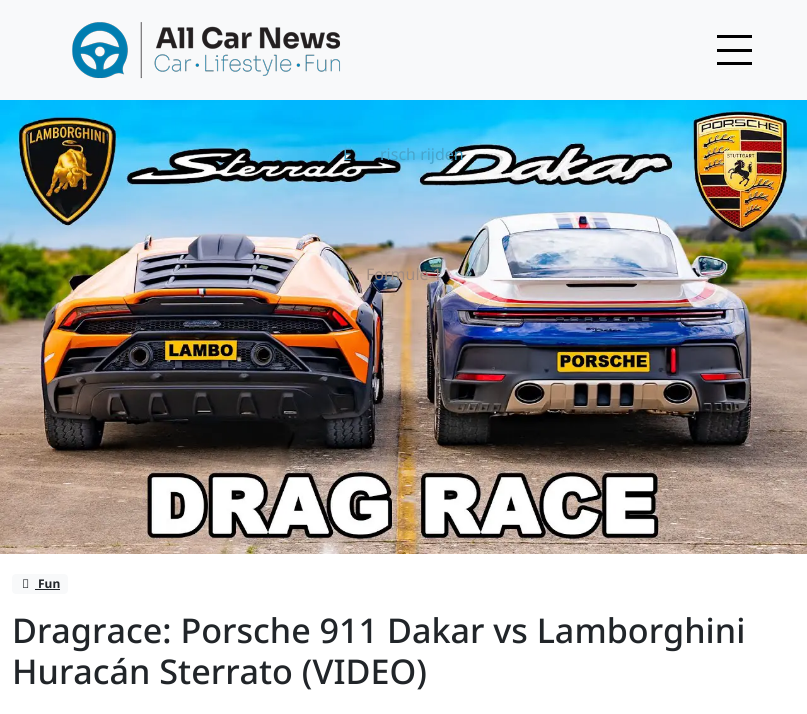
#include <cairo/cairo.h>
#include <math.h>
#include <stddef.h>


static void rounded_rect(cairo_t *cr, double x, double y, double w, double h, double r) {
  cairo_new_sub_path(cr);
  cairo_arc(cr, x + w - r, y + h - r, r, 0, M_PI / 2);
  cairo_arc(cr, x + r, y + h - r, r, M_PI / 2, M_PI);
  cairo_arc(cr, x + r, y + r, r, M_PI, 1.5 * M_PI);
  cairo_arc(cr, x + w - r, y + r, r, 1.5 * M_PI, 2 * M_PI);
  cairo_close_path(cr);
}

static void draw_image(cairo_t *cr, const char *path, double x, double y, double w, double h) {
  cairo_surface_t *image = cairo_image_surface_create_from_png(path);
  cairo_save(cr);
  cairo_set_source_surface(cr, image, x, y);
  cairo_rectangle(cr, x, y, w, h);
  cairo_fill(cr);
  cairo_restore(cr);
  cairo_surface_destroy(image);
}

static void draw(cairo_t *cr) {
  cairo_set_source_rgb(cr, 1, 1, 1);
  cairo_paint(cr);
  draw_image(cr, "images/1.png", 0, 100, 807, 454);
  cairo_set_source_rgb(cr, 248 / 255.0, 249 / 255.0, 250 / 255.0);
  cairo_rectangle(cr, 0, 0, 807, 100);
  cairo_fill(cr);
  draw_image(cr, "images/2.png", 72, 22, 269, 57);
  cairo_set_source_rgb(cr, 0, 0, 0);
  cairo_rectangle(cr, 717, 35, 35, 3);
  cairo_fill(cr);
  cairo_rectangle(cr, 717, 49, 35, 3);
  cairo_fill(cr);
  cairo_rectangle(cr, 717, 62, 35, 3);
  cairo_fill(cr);
  cairo_set_source_rgb(cr, 248 / 255.0, 249 / 255.0, 250 / 255.0);
  rounded_rect(cr, 12, 574, 56, 20, 4);
  cairo_fill(cr);
  draw_image(cr, "images/3.png", 23, 579, 6, 9);
  cairo_set_source_rgb(cr, 33 / 255.0, 37 / 255.0, 41 / 255.0);
  cairo_rectangle(cr, 35, 589, 25, 1);
  cairo_fill(cr);
  cairo_select_font_face(cr, "Noto Sans", CAIRO_FONT_SLANT_NORMAL, CAIRO_FONT_WEIGHT_NORMAL);
  cairo_set_font_size(cr, 16);
  cairo_set_source_rgb(cr, 70 / 255.0, 164 / 255.0, 204 / 255.0);
  cairo_move_to(cr, 343, 160);
  cairo_show_text(cr, "E");
  cairo_move_to(cr, 380, 160);
  cairo_show_text(cr, "risch rijden");
  cairo_set_source_rgb(cr, 162 / 255.0, 140 / 255.0, 129 / 255.0);
  cairo_move_to(cr, 366, 280);
  cairo_show_text(cr, "Formule 1");
  cairo_select_font_face(cr, "Noto Sans", CAIRO_FONT_SLANT_NORMAL, CAIRO_FONT_WEIGHT_BOLD);
  cairo_set_font_size(cr, 12);
  cairo_set_source_rgb(cr, 33 / 255.0, 37 / 255.0, 41 / 255.0);
  cairo_move_to(cr, 38, 588);
  cairo_show_text(cr, "Fun");
  cairo_select_font_face(cr, "Noto Sans Medium", CAIRO_FONT_SLANT_NORMAL, CAIRO_FONT_WEIGHT_NORMAL);
  cairo_set_font_size(cr, 34.1);
  cairo_move_to(cr, 12, 643);
  cairo_show_text(cr, "Dragrace: Porsche 911 Dakar vs Lamborghini");
  cairo_move_to(cr, 12, 684);
  cairo_show_text(cr, "Huracán Sterrato (VIDEO)");
}

int main(void) {
  cairo_surface_t *surface = cairo_image_surface_create(CAIRO_FORMAT_RGB24, 807, 714);
  cairo_t *cr = cairo_create(surface);
  cairo_font_options_t *options = cairo_font_options_create();
  cairo_font_options_set_hint_metrics(options, CAIRO_HINT_METRICS_OFF);
  cairo_font_options_set_hint_style(options, CAIRO_HINT_STYLE_NONE);
  cairo_set_font_options(cr, options);
  cairo_set_miter_limit(cr, 4);
  draw(cr);
  cairo_surface_write_to_png(surface, "out.png");
  cairo_font_options_destroy(options);
  cairo_destroy(cr);
  cairo_surface_destroy(surface);
  return 0;
}
